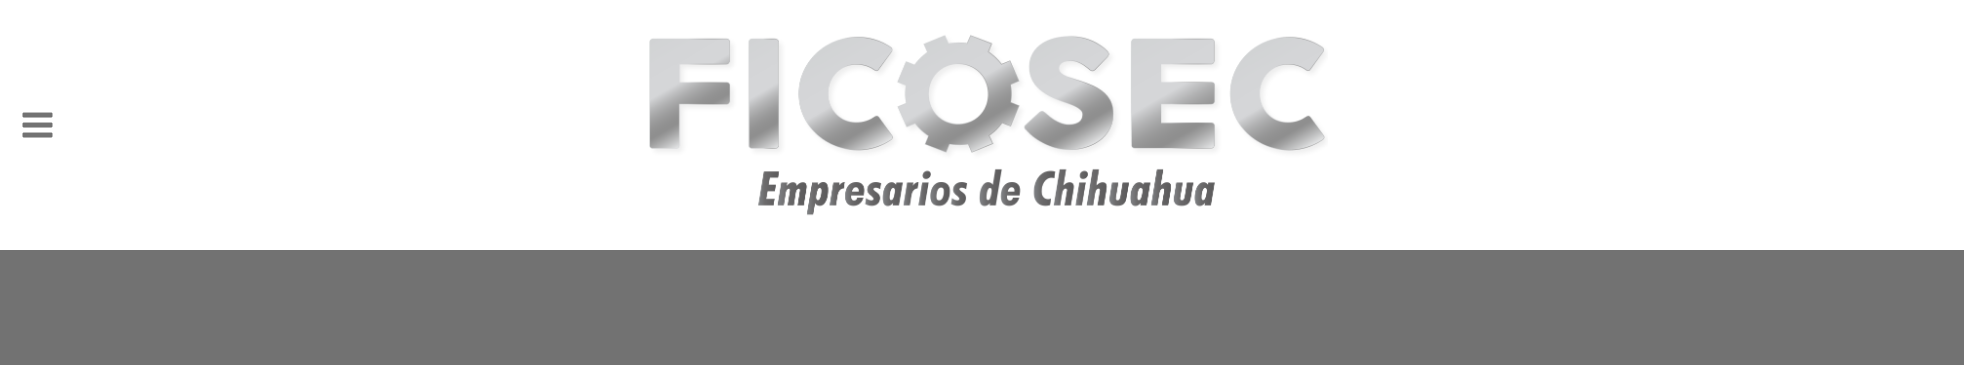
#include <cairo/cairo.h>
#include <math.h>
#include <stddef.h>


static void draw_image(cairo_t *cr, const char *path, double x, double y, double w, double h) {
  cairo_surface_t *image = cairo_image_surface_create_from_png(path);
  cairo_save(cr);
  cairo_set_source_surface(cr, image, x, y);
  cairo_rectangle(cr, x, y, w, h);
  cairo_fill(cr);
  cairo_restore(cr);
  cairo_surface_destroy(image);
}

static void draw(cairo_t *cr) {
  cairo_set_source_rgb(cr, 1, 1, 1);
  cairo_paint(cr);
  draw_image(cr, "images/1.png", 22, 112, 31, 26);
  draw_image(cr, "images/2.png", 649, 34, 679, 182);
  cairo_set_source_rgb(cr, 114 / 255.0, 114 / 255.0, 114 / 255.0);
  cairo_rectangle(cr, 0, 250, 1964, 115);
  cairo_fill(cr);
}

int main(void) {
  cairo_surface_t *surface = cairo_image_surface_create(CAIRO_FORMAT_RGB24, 1964, 365);
  cairo_t *cr = cairo_create(surface);
  cairo_font_options_t *options = cairo_font_options_create();
  cairo_font_options_set_hint_metrics(options, CAIRO_HINT_METRICS_OFF);
  cairo_font_options_set_hint_style(options, CAIRO_HINT_STYLE_NONE);
  cairo_set_font_options(cr, options);
  cairo_set_miter_limit(cr, 4);
  draw(cr);
  cairo_surface_write_to_png(surface, "out.png");
  cairo_font_options_destroy(options);
  cairo_destroy(cr);
  cairo_surface_destroy(surface);
  return 0;
}
